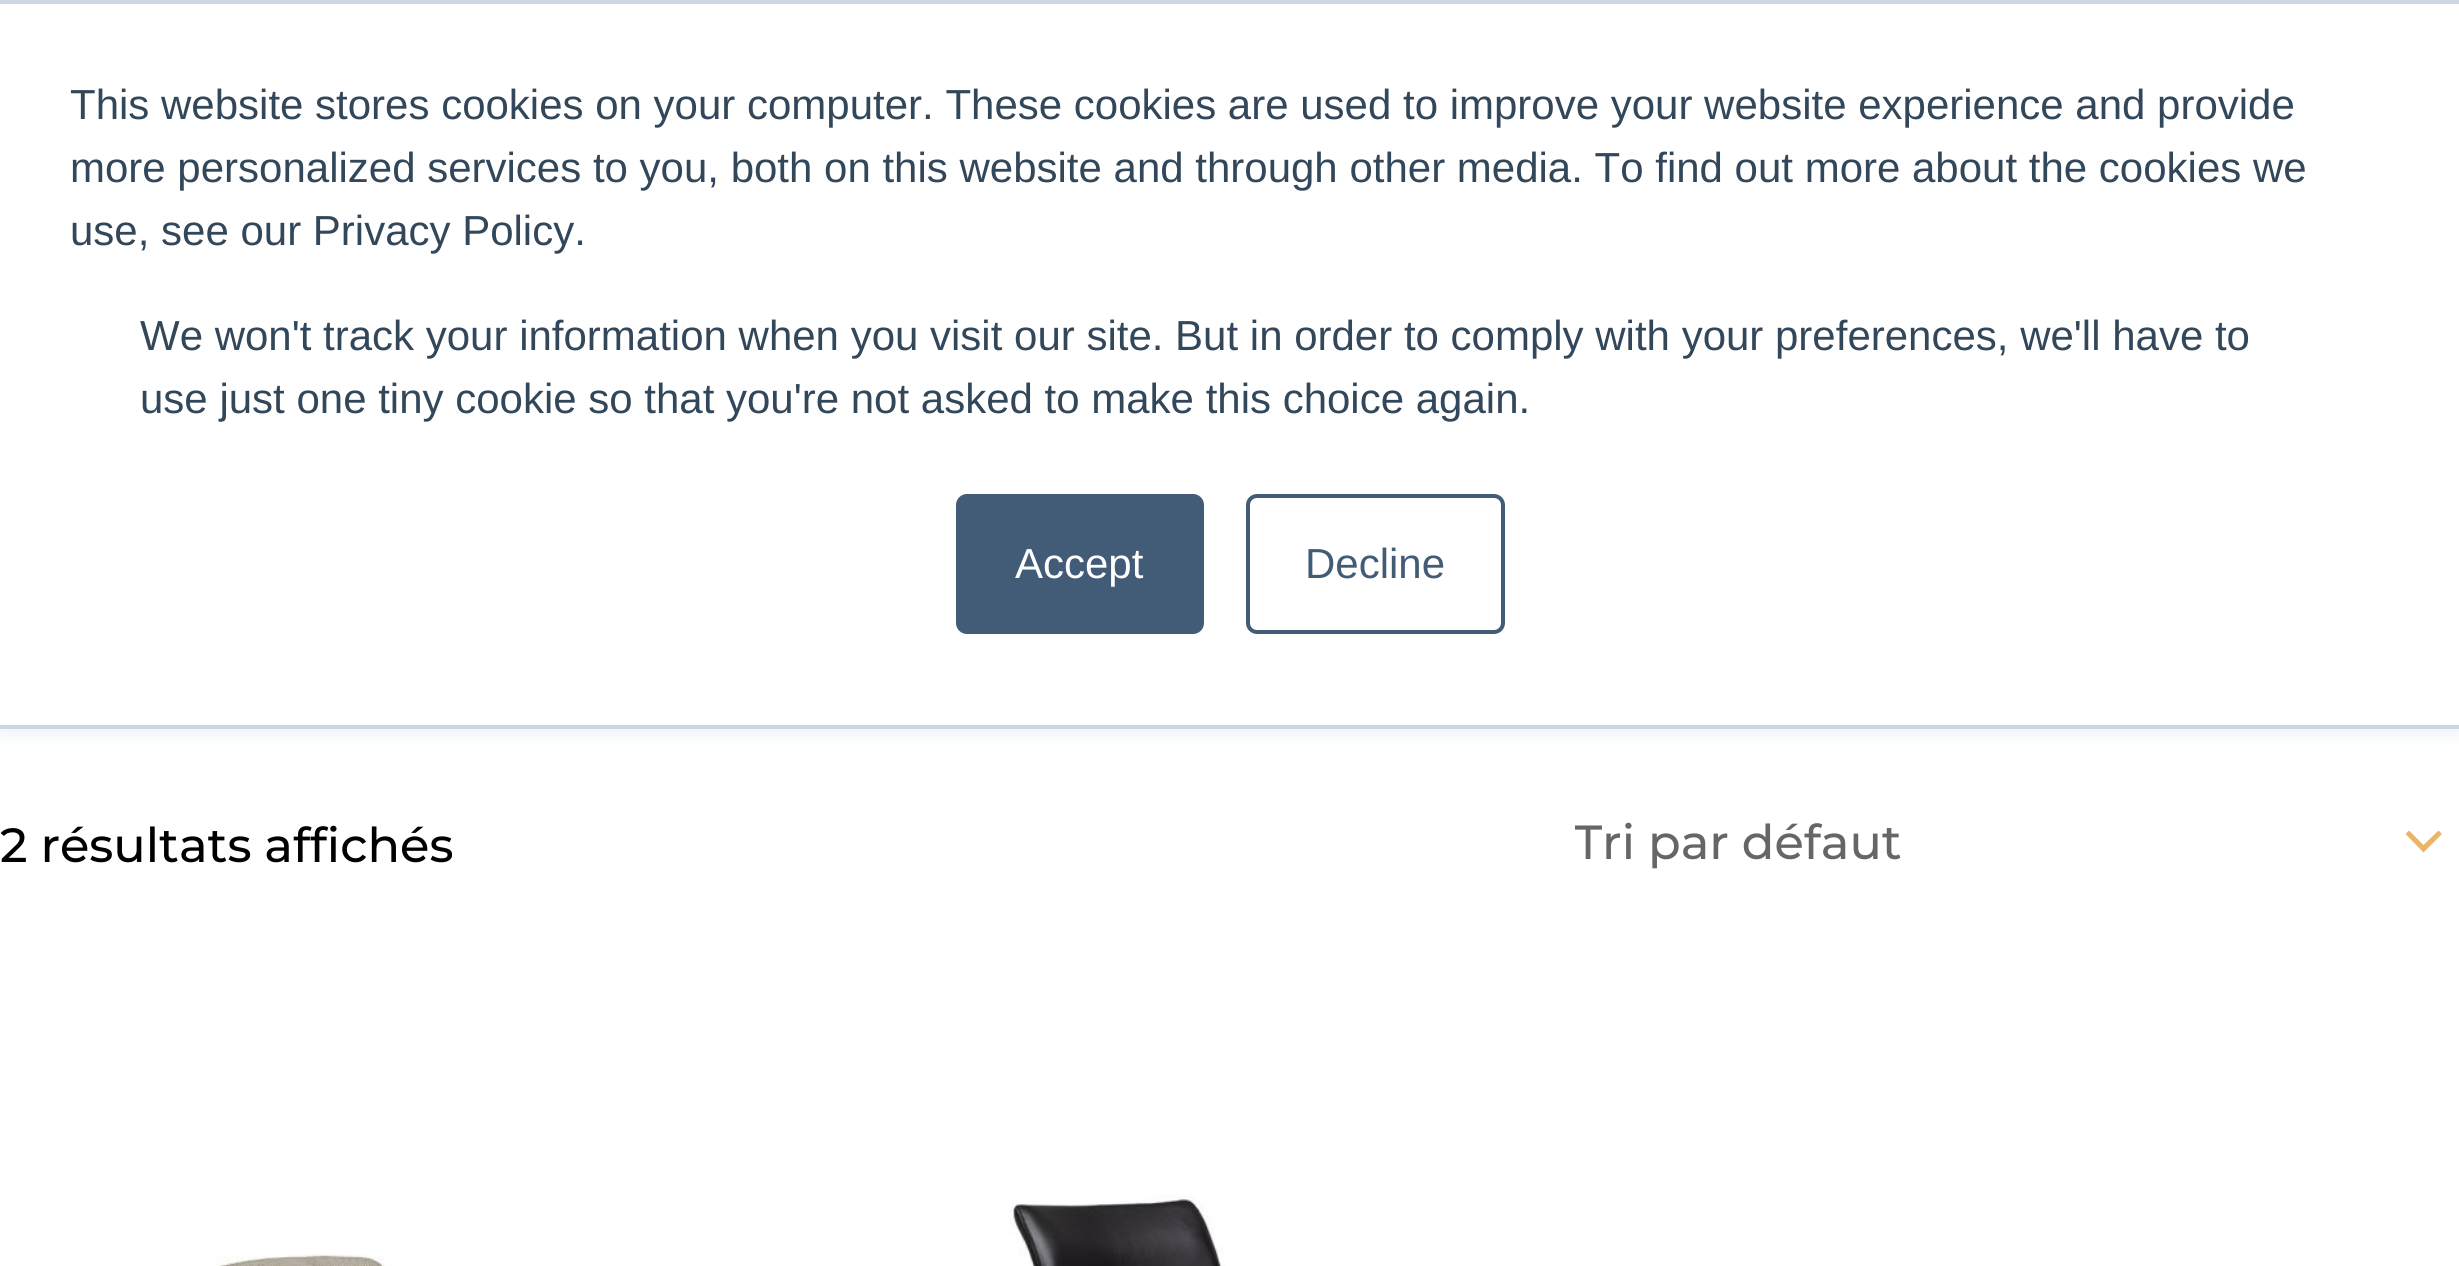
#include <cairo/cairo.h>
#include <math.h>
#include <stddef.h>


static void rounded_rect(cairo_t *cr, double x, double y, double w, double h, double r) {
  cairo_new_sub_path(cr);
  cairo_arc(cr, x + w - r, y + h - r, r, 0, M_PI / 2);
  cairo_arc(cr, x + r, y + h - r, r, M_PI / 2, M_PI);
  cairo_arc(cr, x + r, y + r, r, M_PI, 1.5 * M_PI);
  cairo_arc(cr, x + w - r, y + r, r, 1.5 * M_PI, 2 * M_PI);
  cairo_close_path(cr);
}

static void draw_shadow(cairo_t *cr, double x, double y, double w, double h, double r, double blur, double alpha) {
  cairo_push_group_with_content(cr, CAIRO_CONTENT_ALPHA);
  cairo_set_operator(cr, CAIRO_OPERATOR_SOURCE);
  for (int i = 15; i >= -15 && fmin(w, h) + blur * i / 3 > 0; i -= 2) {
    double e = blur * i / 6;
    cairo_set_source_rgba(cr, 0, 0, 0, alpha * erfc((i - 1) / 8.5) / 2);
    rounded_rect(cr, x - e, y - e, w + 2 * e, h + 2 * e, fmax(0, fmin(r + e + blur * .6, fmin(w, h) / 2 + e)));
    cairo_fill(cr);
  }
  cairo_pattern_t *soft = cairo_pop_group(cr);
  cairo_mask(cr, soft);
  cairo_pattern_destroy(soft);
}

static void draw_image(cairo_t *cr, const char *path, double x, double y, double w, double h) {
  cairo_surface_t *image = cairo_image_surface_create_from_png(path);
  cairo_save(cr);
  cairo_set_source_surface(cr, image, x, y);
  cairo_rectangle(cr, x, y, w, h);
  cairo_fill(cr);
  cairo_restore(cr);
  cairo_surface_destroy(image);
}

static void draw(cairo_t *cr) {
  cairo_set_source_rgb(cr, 1, 1, 1);
  cairo_paint(cr);
  cairo_set_source_rgb(cr, 234 / 255.0, 240 / 255.0, 246 / 255.0);
  draw_shadow(cr, 0, 4, 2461, 728, 0, 9, 1);
  cairo_set_source_rgb(cr, 1, 1, 1);
  cairo_rectangle(cr, 0, 4, 2459, 721);
  cairo_fill(cr);
  cairo_set_source_rgb(cr, 203 / 255.0, 214 / 255.0, 226 / 255.0);
  cairo_rectangle(cr, 0, 0, 2459, 4);
  cairo_fill(cr);
  cairo_rectangle(cr, 0, 725, 2459, 4);
  cairo_fill(cr);
  cairo_set_source_rgb(cr, 66 / 255.0, 91 / 255.0, 118 / 255.0);
  rounded_rect(cr, 958, 496, 244, 136, 9);
  cairo_fill_preserve(cr);
  cairo_set_line_width(cr, 4);
  cairo_stroke(cr);
  rounded_rect(cr, 1248, 496, 255, 136, 9);
  cairo_stroke(cr);
  cairo_set_source_rgb(cr, 232 / 255.0, 181 / 255.0, 107 / 255.0);
  cairo_new_path(cr);
  cairo_move_to(cr, 2405.5, 834);
  cairo_line_to(cr, 2423.5, 852.5);
  cairo_line_to(cr, 2442, 834);
  cairo_line_to(cr, 2438.5, 830.5);
  cairo_line_to(cr, 2423.5, 845);
  cairo_line_to(cr, 2409, 830.5);
  cairo_close_path(cr);
  cairo_fill(cr);
  draw_image(cr, "images/1.png", 215, 1254, 177, 12);
  draw_image(cr, "images/2.png", 1009, 1194, 216, 72);
  cairo_select_font_face(cr, "Liberation Sans", CAIRO_FONT_SLANT_NORMAL, CAIRO_FONT_WEIGHT_NORMAL);
  cairo_set_font_size(cr, 42);
  cairo_set_source_rgb(cr, 51 / 255.0, 71 / 255.0, 91 / 255.0);
  cairo_move_to(cr, 70, 119);
  cairo_show_text(cr, "This website stores cookies on your computer. These cookies are used to improve your website experience and provide");
  cairo_move_to(cr, 70, 182);
  cairo_show_text(cr, "more personalized services to you, both on this website and through other media. To find out more about the cookies we");
  cairo_move_to(cr, 70, 245);
  cairo_show_text(cr, "use, see our Privacy Policy.");
  cairo_move_to(cr, 140, 350);
  cairo_show_text(cr, "We won't track your information when you visit our site. But in order to comply with your preferences, we'll have to");
  cairo_move_to(cr, 140, 413);
  cairo_show_text(cr, "use just one tiny cookie so that you're not asked to make this choice again.");
  cairo_set_source_rgb(cr, 1, 1, 1);
  cairo_move_to(cr, 1015, 578);
  cairo_show_text(cr, "Accept");
  cairo_set_source_rgb(cr, 66 / 255.0, 91 / 255.0, 118 / 255.0);
  cairo_move_to(cr, 1305, 578);
  cairo_show_text(cr, "Decline");
  cairo_select_font_face(cr, "Montserrat Medium", CAIRO_FONT_SLANT_NORMAL, CAIRO_FONT_WEIGHT_NORMAL);
  cairo_set_font_size(cr, 47.9);
  cairo_set_source_rgb(cr, 0, 0, 0);
  cairo_move_to(cr, 0, 862);
  cairo_show_text(cr, "2 résultats affichés");
  cairo_save(cr);
  cairo_rectangle(cr, 1575, 816, 791, 56);
  cairo_clip(cr);
  cairo_set_source_rgb(cr, 102 / 255.0, 102 / 255.0, 102 / 255.0);
  cairo_move_to(cr, 1574, 859);
  cairo_show_text(cr, "Tri par défaut");
  cairo_restore(cr);
}

int main(void) {
  cairo_surface_t *surface = cairo_image_surface_create(CAIRO_FORMAT_RGB24, 2459, 1266);
  cairo_t *cr = cairo_create(surface);
  cairo_font_options_t *options = cairo_font_options_create();
  cairo_font_options_set_hint_metrics(options, CAIRO_HINT_METRICS_OFF);
  cairo_font_options_set_hint_style(options, CAIRO_HINT_STYLE_NONE);
  cairo_set_font_options(cr, options);
  cairo_set_miter_limit(cr, 4);
  draw(cr);
  cairo_surface_write_to_png(surface, "out.png");
  cairo_font_options_destroy(options);
  cairo_destroy(cr);
  cairo_surface_destroy(surface);
  return 0;
}
